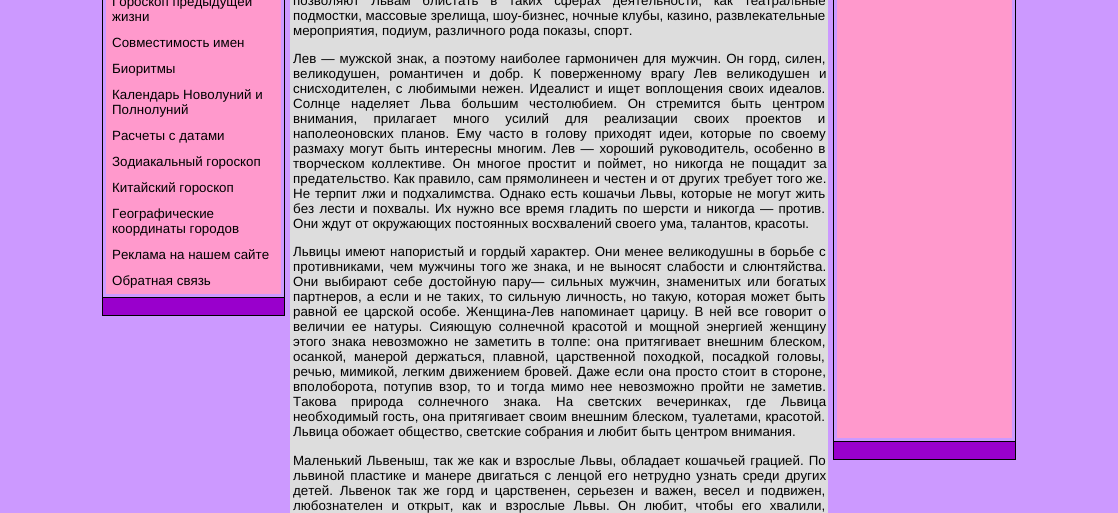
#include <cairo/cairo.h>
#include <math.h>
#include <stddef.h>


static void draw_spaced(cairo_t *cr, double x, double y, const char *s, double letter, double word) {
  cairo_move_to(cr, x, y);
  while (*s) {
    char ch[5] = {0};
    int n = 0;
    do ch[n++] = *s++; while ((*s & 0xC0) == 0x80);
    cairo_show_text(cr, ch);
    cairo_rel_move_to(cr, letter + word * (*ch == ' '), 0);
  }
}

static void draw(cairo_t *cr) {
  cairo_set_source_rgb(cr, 204 / 255.0, 153 / 255.0, 1);
  cairo_paint(cr);
  cairo_set_source_rgb(cr, 0, 0, 0);
  cairo_rectangle(cr, 102, 0, 183, 316);
  cairo_fill(cr);
  cairo_set_source_rgb(cr, 204 / 255.0, 153 / 255.0, 1);
  cairo_rectangle(cr, 103, 0, 181, 297);
  cairo_fill(cr);
  cairo_set_source_rgb(cr, 1, 153 / 255.0, 204 / 255.0);
  cairo_rectangle(cr, 106, 0, 175, 294);
  cairo_fill(cr);
  cairo_set_source_rgb(cr, 153 / 255.0, 0, 204 / 255.0);
  cairo_rectangle(cr, 103, 298, 181, 17);
  cairo_fill(cr);
  cairo_set_source_rgb(cr, 221 / 255.0, 221 / 255.0, 221 / 255.0);
  cairo_rectangle(cr, 290, 0, 538, 513);
  cairo_fill(cr);
  cairo_set_source_rgb(cr, 0, 0, 0);
  cairo_rectangle(cr, 833, 0, 183, 460);
  cairo_fill(cr);
  cairo_set_source_rgb(cr, 204 / 255.0, 153 / 255.0, 1);
  cairo_rectangle(cr, 834, 0, 181, 441);
  cairo_fill(cr);
  cairo_set_source_rgb(cr, 1, 153 / 255.0, 204 / 255.0);
  cairo_rectangle(cr, 837, 0, 175, 438);
  cairo_fill(cr);
  cairo_set_source_rgb(cr, 153 / 255.0, 0, 204 / 255.0);
  cairo_rectangle(cr, 834, 442, 181, 17);
  cairo_fill(cr);
  cairo_select_font_face(cr, "Liberation Sans", CAIRO_FONT_SLANT_NORMAL, CAIRO_FONT_WEIGHT_NORMAL);
  cairo_set_font_size(cr, 13.35);
  cairo_set_source_rgb(cr, 0, 0, 0);
  cairo_move_to(cr, 112, 6);
  cairo_show_text(cr, "Гороскоп предыдущей");
  cairo_move_to(cr, 112, 21);
  cairo_show_text(cr, "жизни");
  cairo_move_to(cr, 112, 47);
  cairo_show_text(cr, "Совместимость имен");
  cairo_move_to(cr, 112, 73);
  cairo_show_text(cr, "Биоритмы");
  cairo_move_to(cr, 112, 99);
  cairo_show_text(cr, "Календарь Новолуний и");
  cairo_move_to(cr, 112, 114);
  cairo_show_text(cr, "Полнолуний");
  cairo_move_to(cr, 112, 140);
  cairo_show_text(cr, "Расчеты с датами");
  cairo_move_to(cr, 112, 166);
  cairo_show_text(cr, "Зодиакальный гороскоп");
  cairo_move_to(cr, 112, 192);
  cairo_show_text(cr, "Китайский гороскоп");
  cairo_move_to(cr, 112, 218);
  cairo_show_text(cr, "Географические");
  cairo_move_to(cr, 112, 233);
  cairo_show_text(cr, "координаты городов");
  cairo_move_to(cr, 112, 259);
  cairo_show_text(cr, "Реклама на нашем сайте");
  cairo_move_to(cr, 112, 285);
  cairo_show_text(cr, "Обратная связь");
  draw_spaced(cr, 293, 5, "позволяют Львам блистать в таких сферах деятельности, как театральные", 0, 8);
  cairo_move_to(cr, 293, 20);
  cairo_show_text(cr, "подмостки, массовые зрелища, шоу-бизнес, ночные клубы, казино, развлекательные");
  cairo_move_to(cr, 293, 35);
  cairo_show_text(cr, "мероприятия, подиум, различного рода показы, спорт.");
  draw_spaced(cr, 293, 63, "Лев — мужской знак, а поэтому наиболее гармоничен для мужчин. Он горд, силен,", 0, 1.25);
  draw_spaced(cr, 293, 78, "великодушен, романтичен и добр. К поверженному врагу Лев великодушен и", 0, 5.75);
  draw_spaced(cr, 293, 93, "снисходителен, с любимыми нежен. Идеалист и ищет воплощения своих идеалов.", 0, 1.75);
  draw_spaced(cr, 293, 108, "Солнце наделяет Льва большим честолюбием. Он стремится быть центром", 0, 7);
  draw_spaced(cr, 293, 123, "внимания, прилагает много усилий для реализации своих проектов и", 0, 12.5);
  draw_spaced(cr, 293, 138, "наполеоновских планов. Ему часто в голову приходят идеи, которые по своему", 0, 3.75);
  draw_spaced(cr, 293, 153, "размаху могут быть интересны многим. Лев — хороший руководитель, особенно в", 0, 1.75);
  draw_spaced(cr, 293, 168, "творческом коллективе. Он многое простит и поймет, но никогда не пощадит за", 0, 3.25);
  draw_spaced(cr, 293, 183, "предательство. Как правило, сам прямолинеен и честен и от других требует того же.", 0, 0.25);
  draw_spaced(cr, 293, 198, "Не терпит лжи и подхалимства. Однако есть кошачьи Львы, которые не могут жить", 0, 1.1);
  draw_spaced(cr, 293, 213, "без лести и похвалы. Их нужно все время гладить по шерсти и никогда — против.", 0, 1.5);
  cairo_move_to(cr, 293, 228);
  cairo_show_text(cr, "Они ждут от окружающих постоянных восхвалений своего ума, талантов, красоты.");
  draw_spaced(cr, 293, 256, "Львицы имеют напористый и гордый характер. Они менее великодушны в борьбе с", 0, 1);
  draw_spaced(cr, 293, 271, "противниками, чем мужчины того же знака, и не выносят слабости и слюнтяйства.", 0, 1.75);
  draw_spaced(cr, 293, 286, "Они выбирают себе достойную пару— сильных мужчин, знаменитых или богатых", 0, 2.6);
  draw_spaced(cr, 293, 301, "партнеров, а если и не таких, то сильную личность, но такую, которая может быть", 0, 1.5);
  draw_spaced(cr, 293, 316, "равной ее царской особе. Женщина-Лев напоминает царицу. В ней все говорит о", 0, 2.25);
  draw_spaced(cr, 293, 331, "величии ее натуры. Сияющую солнечной красотой и мощной энергией женщину", 0, 3.5);
  draw_spaced(cr, 293, 346, "этого знака невозможно не заметить в толпе: она притягивает внешним блеском,", 0, 2.4);
  draw_spaced(cr, 293, 361, "осанкой, манерой держаться, плавной, царственной походкой, посадкой головы,", 0, 4);
  draw_spaced(cr, 293, 376, "речью, мимикой, легким движением бровей. Даже если она просто стоит в стороне,", 0, 0.9);
  draw_spaced(cr, 293, 391, "вполоборота, потупив взор, то и тогда мимо нее невозможно пройти не заметив.", 0, 2.6);
  draw_spaced(cr, 293, 406, "Такова природа солнечного знака. На светских вечеринках, где Львица", 0, 11);
  draw_spaced(cr, 293, 421, "необходимый гость, она притягивает своим внешним блеском, туалетами, красотой.", 0, 0.5);
  cairo_move_to(cr, 293, 436);
  cairo_show_text(cr, "Львица обожает общество, светские собрания и любит быть центром внимания.");
  draw_spaced(cr, 293, 465, "Маленький Львеныш, так же как и взрослые Львы, обладает кошачьей грацией. По", 0, 1.25);
  draw_spaced(cr, 293, 480, "львиной пластике и манере двигаться с ленцой его нетрудно узнать среди других", 0, 2);
  draw_spaced(cr, 293, 495, "детей. Львенок так же горд и царственен, серьезен и важен, весел и подвижен,", 0, 3);
  draw_spaced(cr, 293, 510, "любознателен и открыт, как и взрослые Львы. Он любит, чтобы его хвалили,", 0, 4.75);
}

int main(void) {
  cairo_surface_t *surface = cairo_image_surface_create(CAIRO_FORMAT_RGB24, 1118, 513);
  cairo_t *cr = cairo_create(surface);
  cairo_font_options_t *options = cairo_font_options_create();
  cairo_font_options_set_hint_metrics(options, CAIRO_HINT_METRICS_OFF);
  cairo_font_options_set_hint_style(options, CAIRO_HINT_STYLE_NONE);
  cairo_set_font_options(cr, options);
  cairo_set_miter_limit(cr, 4);
  draw(cr);
  cairo_surface_write_to_png(surface, "out.png");
  cairo_font_options_destroy(options);
  cairo_destroy(cr);
  cairo_surface_destroy(surface);
  return 0;
}
